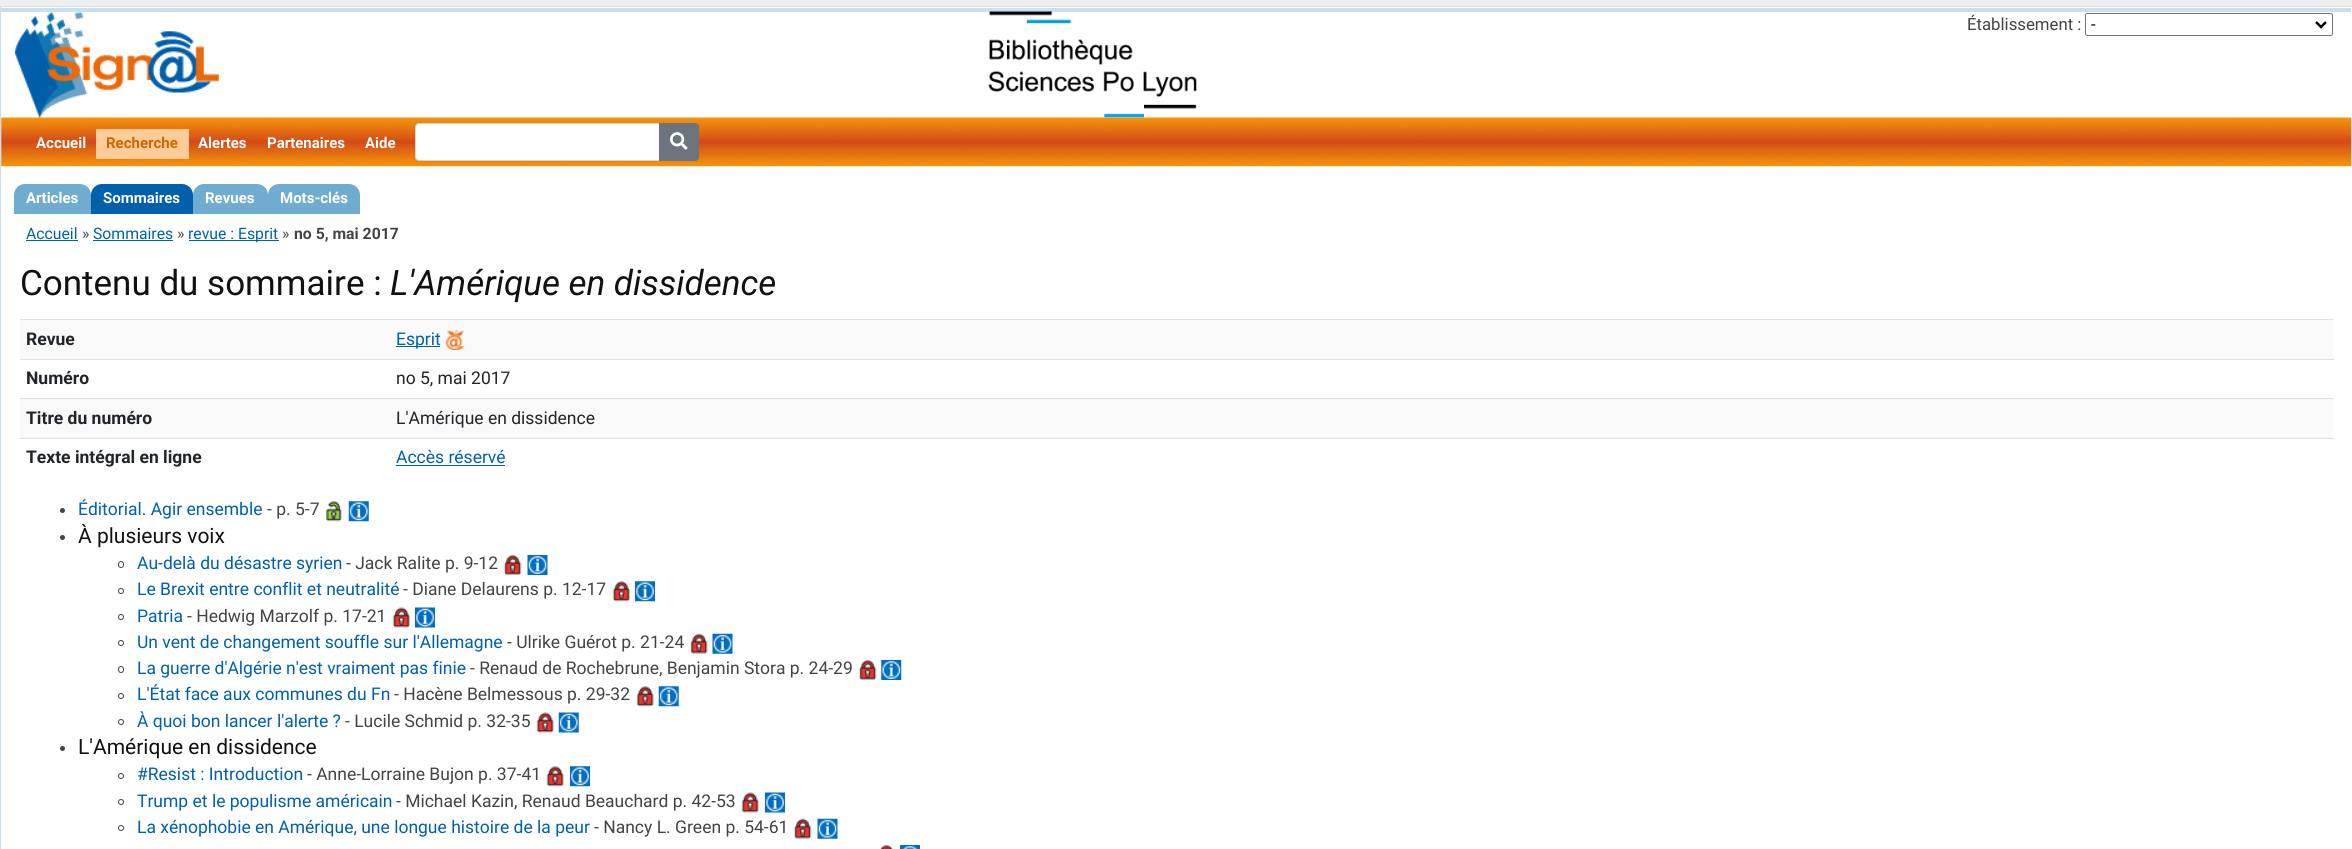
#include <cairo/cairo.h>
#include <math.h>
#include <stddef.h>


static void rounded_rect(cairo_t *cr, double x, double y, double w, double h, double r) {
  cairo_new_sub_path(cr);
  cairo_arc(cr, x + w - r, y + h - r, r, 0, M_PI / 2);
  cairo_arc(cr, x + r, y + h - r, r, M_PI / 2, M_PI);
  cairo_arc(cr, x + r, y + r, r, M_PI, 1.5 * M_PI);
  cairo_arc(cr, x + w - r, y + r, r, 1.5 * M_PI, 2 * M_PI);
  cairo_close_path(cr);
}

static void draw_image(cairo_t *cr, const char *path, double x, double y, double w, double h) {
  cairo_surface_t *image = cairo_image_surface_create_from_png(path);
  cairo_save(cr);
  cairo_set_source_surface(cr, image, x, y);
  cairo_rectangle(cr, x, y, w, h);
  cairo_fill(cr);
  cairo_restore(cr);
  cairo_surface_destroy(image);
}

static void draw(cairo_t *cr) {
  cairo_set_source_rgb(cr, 239 / 255.0, 239 / 255.0, 239 / 255.0);
  cairo_paint(cr);
  cairo_set_source_rgb(cr, 1, 1, 1);
  cairo_rectangle(cr, 0.5, 6.5, 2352, 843);
  cairo_fill_preserve(cr);
  cairo_set_source_rgb(cr, 201 / 255.0, 224 / 255.0, 237 / 255.0);
  cairo_set_line_width(cr, 1);
  cairo_stroke(cr);
  cairo_rectangle(cr, 1, 8, 2350, 4);
  cairo_fill(cr);
  draw_image(cr, "images/3.png", 1, 117, 2351, 50);
  draw_image(cr, "images/1.png", 14, 12, 205, 106);
  draw_image(cr, "images/2.png", 988, 11, 209, 107);
  rounded_rect(cr, 2085.5, 13.5, 247, 22, 2);
  cairo_set_source_rgb(cr, 118 / 255.0, 118 / 255.0, 118 / 255.0);
  cairo_stroke(cr);
  cairo_new_path(cr);
  cairo_move_to(cr, 2316, 22);
  cairo_line_to(cr, 2321, 27);
  cairo_line_to(cr, 2326, 22);
  cairo_set_source_rgb(cr, 0, 0, 0);
  cairo_set_line_width(cr, 2.5);
  cairo_stroke(cr);
  cairo_set_source_rgb(cr, 1, 204 / 255.0, 153 / 255.0);
  cairo_rectangle(cr, 96, 129, 93, 30);
  cairo_fill(cr);
  cairo_set_source_rgb(cr, 111 / 255.0, 172 / 255.0, 207 / 255.0);
  cairo_new_path(cr);
  cairo_move_to(cr, 25, 184);
  cairo_line_to(cr, 80, 184);
  cairo_curve_to(cr, 86, 184, 91, 189, 91, 195);
  cairo_line_to(cr, 91, 214);
  cairo_line_to(cr, 14, 214);
  cairo_line_to(cr, 14, 195);
  cairo_curve_to(cr, 14, 189, 19, 184, 25, 184);
  cairo_close_path(cr);
  cairo_fill(cr);
  cairo_set_source_rgb(cr, 0, 96 / 255.0, 169 / 255.0);
  cairo_new_path(cr);
  cairo_move_to(cr, 102, 184);
  cairo_line_to(cr, 182, 184);
  cairo_curve_to(cr, 188, 184, 193, 189, 193, 195);
  cairo_line_to(cr, 193, 214);
  cairo_line_to(cr, 91, 214);
  cairo_line_to(cr, 91, 195);
  cairo_curve_to(cr, 91, 189, 96, 184, 102, 184);
  cairo_close_path(cr);
  cairo_fill(cr);
  cairo_set_source_rgb(cr, 111 / 255.0, 172 / 255.0, 207 / 255.0);
  cairo_new_path(cr);
  cairo_move_to(cr, 204, 184);
  cairo_line_to(cr, 257, 184);
  cairo_curve_to(cr, 263, 184, 268, 189, 268, 195);
  cairo_line_to(cr, 268, 214);
  cairo_line_to(cr, 193, 214);
  cairo_line_to(cr, 193, 195);
  cairo_curve_to(cr, 193, 189, 198, 184, 204, 184);
  cairo_close_path(cr);
  cairo_fill(cr);
  cairo_new_path(cr);
  cairo_move_to(cr, 279, 184);
  cairo_line_to(cr, 349, 184);
  cairo_curve_to(cr, 355, 184, 360, 189, 360, 195);
  cairo_line_to(cr, 360, 214);
  cairo_line_to(cr, 268, 214);
  cairo_line_to(cr, 268, 195);
  cairo_curve_to(cr, 268, 189, 273, 184, 279, 184);
  cairo_close_path(cr);
  cairo_fill(cr);
  cairo_set_source_rgb(cr, 1, 1, 1);
  cairo_new_path(cr);
  cairo_move_to(cr, 418.5, 124);
  cairo_line_to(cr, 659, 124);
  cairo_line_to(cr, 659, 160);
  cairo_line_to(cr, 418.5, 160);
  cairo_curve_to(cr, 417, 160, 416, 159, 416, 157.5);
  cairo_line_to(cr, 416, 126.5);
  cairo_curve_to(cr, 416, 125, 417, 124, 418.5, 124);
  cairo_close_path(cr);
  cairo_fill(cr);
  cairo_new_path(cr);
  cairo_move_to(cr, 419, 123.5);
  cairo_line_to(cr, 659.5, 123.5);
  cairo_line_to(cr, 659.5, 160.5);
  cairo_line_to(cr, 419, 160.5);
  cairo_curve_to(cr, 417, 160.5, 415.5, 159, 415.5, 157);
  cairo_line_to(cr, 415.5, 127);
  cairo_curve_to(cr, 415.5, 125, 417, 123.5, 419, 123.5);
  cairo_close_path(cr);
  cairo_set_source_rgb(cr, 206 / 255.0, 212 / 255.0, 218 / 255.0);
  cairo_set_line_width(cr, 1);
  cairo_stroke(cr);
  cairo_set_source_rgb(cr, 108 / 255.0, 117 / 255.0, 125 / 255.0);
  cairo_new_path(cr);
  cairo_move_to(cr, 659.5, 123.5);
  cairo_line_to(cr, 695, 123.5);
  cairo_curve_to(cr, 697, 123.5, 698.5, 125, 698.5, 127);
  cairo_line_to(cr, 698.5, 157);
  cairo_curve_to(cr, 698.5, 159, 697, 160.5, 695, 160.5);
  cairo_line_to(cr, 659.5, 160.5);
  cairo_close_path(cr);
  cairo_fill_preserve(cr);
  cairo_stroke(cr);
  draw_image(cr, "images/4.png", 670, 132, 18, 18);
  cairo_set_source_rgb(cr, 0, 96 / 255.0, 169 / 255.0);
  cairo_rectangle(cr, 26, 240, 52, 1);
  cairo_fill(cr);
  cairo_rectangle(cr, 93, 240, 80, 1);
  cairo_fill(cr);
  cairo_rectangle(cr, 189, 240, 90, 1);
  cairo_fill(cr);
  cairo_set_source_rgb(cr, 249 / 255.0, 249 / 255.0, 249 / 255.0);
  cairo_rectangle(cr, 20, 320, 2313, 39);
  cairo_fill(cr);
  cairo_set_source_rgb(cr, 222 / 255.0, 226 / 255.0, 230 / 255.0);
  cairo_rectangle(cr, 20, 319, 2314, 1);
  cairo_fill(cr);
  cairo_set_source_rgb(cr, 0, 96 / 255.0, 169 / 255.0);
  cairo_rectangle(cr, 396, 346, 44, 1);
  cairo_fill(cr);
  draw_image(cr, "images/5.png", 445, 330, 20, 20);
  cairo_set_source_rgb(cr, 222 / 255.0, 226 / 255.0, 230 / 255.0);
  cairo_rectangle(cr, 20, 359, 2314, 1);
  cairo_fill(cr);
  cairo_set_source_rgb(cr, 249 / 255.0, 249 / 255.0, 249 / 255.0);
  cairo_rectangle(cr, 20, 399, 2313, 39);
  cairo_fill(cr);
  cairo_set_source_rgb(cr, 222 / 255.0, 226 / 255.0, 230 / 255.0);
  cairo_rectangle(cr, 20, 398, 2314, 1);
  cairo_fill(cr);
  cairo_rectangle(cr, 20, 438, 2314, 1);
  cairo_fill(cr);
  cairo_set_source_rgb(cr, 0, 96 / 255.0, 169 / 255.0);
  cairo_rectangle(cr, 396, 465, 109, 1);
  cairo_fill(cr);
  cairo_set_source_rgb(cr, 68 / 255.0, 68 / 255.0, 68 / 255.0);
  cairo_arc(cr, 62.5, 510.5, 2.5, 0, 2 * M_PI);
  cairo_fill(cr);
  draw_image(cr, "images/6.png", 324, 501, 20, 21);
  draw_image(cr, "images/7.png", 348, 501, 21, 21);
  cairo_arc(cr, 62.5, 537.5, 2.5, 0, 2 * M_PI);
  cairo_fill(cr);
  rounded_rect(cr, 118.5, 561.5, 5, 6, 2.5);
  cairo_stroke(cr);
  draw_image(cr, "images/8.png", 503, 555, 19, 20);
  draw_image(cr, "images/9.png", 527, 555, 21, 20);
  cairo_arc(cr, 121, 591, 2.5, 0, 2 * M_PI);
  cairo_stroke(cr);
  draw_image(cr, "images/10.png", 612, 581, 19, 21);
  draw_image(cr, "images/11.png", 635, 581, 20, 21);
  cairo_arc(cr, 121, 617, 2.5, 0, 2 * M_PI);
  cairo_stroke(cr);
  draw_image(cr, "images/12.png", 392, 607, 19, 21);
  draw_image(cr, "images/13.png", 415, 607, 20, 21);
  cairo_arc(cr, 121, 643, 2.5, 0, 2 * M_PI);
  cairo_stroke(cr);
  draw_image(cr, "images/14.png", 690, 633, 18, 21);
  draw_image(cr, "images/15.png", 712, 633, 21, 21);
  rounded_rect(cr, 118.5, 666.5, 5, 6, 2.5);
  cairo_stroke(cr);
  draw_image(cr, "images/8.png", 858, 660, 19, 20);
  draw_image(cr, "images/16.png", 881, 660, 21, 20);
  cairo_arc(cr, 121, 696, 2.5, 0, 2 * M_PI);
  cairo_stroke(cr);
  draw_image(cr, "images/17.png", 636, 686, 18, 21);
  draw_image(cr, "images/18.png", 658, 686, 21, 21);
  cairo_arc(cr, 121, 722, 2.5, 0, 2 * M_PI);
  cairo_stroke(cr);
  draw_image(cr, "images/19.png", 536, 712, 19, 21);
  draw_image(cr, "images/20.png", 558, 712, 21, 21);
  cairo_arc(cr, 62.5, 748.5, 2.5, 0, 2 * M_PI);
  cairo_fill(cr);
  cairo_arc(cr, 121, 776, 2.5, 0, 2 * M_PI);
  cairo_stroke(cr);
  draw_image(cr, "images/21.png", 546, 766, 18, 21);
  draw_image(cr, "images/22.png", 570, 766, 20, 21);
  cairo_arc(cr, 121, 802, 2.5, 0, 2 * M_PI);
  cairo_stroke(cr);
  draw_image(cr, "images/19.png", 741, 792, 19, 21);
  draw_image(cr, "images/23.png", 765, 792, 20, 21);
  cairo_arc(cr, 121, 828, 2.5, 0, 2 * M_PI);
  cairo_stroke(cr);
  draw_image(cr, "images/24.png", 793, 818, 19, 21);
  draw_image(cr, "images/25.png", 817, 818, 21, 21);
  draw_image(cr, "images/26.png", 880, 845, 13, 4);
  draw_image(cr, "images/27.png", 900, 845, 20, 4);
  cairo_select_font_face(cr, "Roboto", CAIRO_FONT_SLANT_NORMAL, CAIRO_FONT_WEIGHT_NORMAL);
  cairo_set_font_size(cr, 16.75);
  cairo_move_to(cr, 1967, 30);
  cairo_show_text(cr, "Établissement :");
  cairo_set_source_rgb(cr, 0, 0, 0);
  cairo_move_to(cr, 2091, 30);
  cairo_show_text(cr, "-");
  cairo_select_font_face(cr, "Roboto", CAIRO_FONT_SLANT_NORMAL, CAIRO_FONT_WEIGHT_BOLD);
  cairo_set_font_size(cr, 15);
  cairo_set_source_rgb(cr, 204 / 255.0, 102 / 255.0, 0);
  cairo_move_to(cr, 106, 148);
  cairo_show_text(cr, "Recherche");
  cairo_set_source_rgb(cr, 1, 1, 1);
  cairo_move_to(cr, 26, 203);
  cairo_show_text(cr, "Articles");
  cairo_move_to(cr, 103, 203);
  cairo_show_text(cr, "Sommaires");
  cairo_move_to(cr, 205, 203);
  cairo_show_text(cr, "Revues");
  cairo_move_to(cr, 280, 203);
  cairo_show_text(cr, "Mots-clés");
  cairo_move_to(cr, 36, 148);
  cairo_show_text(cr, "Accueil");
  cairo_move_to(cr, 198, 148);
  cairo_show_text(cr, "Alertes");
  cairo_move_to(cr, 267, 148);
  cairo_show_text(cr, "Partenaires");
  cairo_move_to(cr, 365, 148);
  cairo_show_text(cr, "Aide");
  cairo_select_font_face(cr, "Roboto", CAIRO_FONT_SLANT_NORMAL, CAIRO_FONT_WEIGHT_NORMAL);
  cairo_set_font_size(cr, 15.75);
  cairo_set_source_rgb(cr, 0, 96 / 255.0, 169 / 255.0);
  cairo_move_to(cr, 26, 239);
  cairo_show_text(cr, "Accueil");
  cairo_set_source_rgb(cr, 68 / 255.0, 68 / 255.0, 68 / 255.0);
  cairo_move_to(cr, 82, 239);
  cairo_show_text(cr, "»");
  cairo_set_source_rgb(cr, 0, 96 / 255.0, 169 / 255.0);
  cairo_move_to(cr, 93, 239);
  cairo_show_text(cr, "Sommaires");
  cairo_set_source_rgb(cr, 68 / 255.0, 68 / 255.0, 68 / 255.0);
  cairo_move_to(cr, 177, 239);
  cairo_show_text(cr, "»");
  cairo_set_source_rgb(cr, 0, 96 / 255.0, 169 / 255.0);
  cairo_move_to(cr, 188, 239);
  cairo_show_text(cr, "revue : Esprit");
  cairo_set_source_rgb(cr, 68 / 255.0, 68 / 255.0, 68 / 255.0);
  cairo_move_to(cr, 282, 239);
  cairo_show_text(cr, "»");
  cairo_select_font_face(cr, "Roboto", CAIRO_FONT_SLANT_NORMAL, CAIRO_FONT_WEIGHT_BOLD);
  cairo_move_to(cr, 294, 239);
  cairo_show_text(cr, "no 5, mai 2017");
  cairo_select_font_face(cr, "Roboto", CAIRO_FONT_SLANT_NORMAL, CAIRO_FONT_WEIGHT_NORMAL);
  cairo_set_font_size(cr, 35);
  cairo_set_source_rgb(cr, 17 / 255.0, 17 / 255.0, 17 / 255.0);
  cairo_move_to(cr, 20, 295);
  cairo_show_text(cr, "Contenu du sommaire :");
  cairo_select_font_face(cr, "Roboto", CAIRO_FONT_SLANT_ITALIC, CAIRO_FONT_WEIGHT_NORMAL);
  cairo_move_to(cr, 390, 295);
  cairo_show_text(cr, "L'Amérique en dissidence");
  cairo_select_font_face(cr, "Roboto", CAIRO_FONT_SLANT_NORMAL, CAIRO_FONT_WEIGHT_BOLD);
  cairo_set_font_size(cr, 17.5);
  cairo_set_source_rgb(cr, 33 / 255.0, 37 / 255.0, 41 / 255.0);
  cairo_move_to(cr, 26, 345);
  cairo_show_text(cr, "Revue");
  cairo_select_font_face(cr, "Roboto", CAIRO_FONT_SLANT_NORMAL, CAIRO_FONT_WEIGHT_NORMAL);
  cairo_set_source_rgb(cr, 0, 96 / 255.0, 169 / 255.0);
  cairo_move_to(cr, 396, 345);
  cairo_show_text(cr, "Esprit");
  cairo_select_font_face(cr, "Roboto", CAIRO_FONT_SLANT_NORMAL, CAIRO_FONT_WEIGHT_BOLD);
  cairo_set_source_rgb(cr, 33 / 255.0, 37 / 255.0, 41 / 255.0);
  cairo_move_to(cr, 26, 384);
  cairo_show_text(cr, "Numéro");
  cairo_select_font_face(cr, "Roboto", CAIRO_FONT_SLANT_NORMAL, CAIRO_FONT_WEIGHT_NORMAL);
  cairo_move_to(cr, 396, 384);
  cairo_show_text(cr, "no 5, mai 2017");
  cairo_select_font_face(cr, "Roboto", CAIRO_FONT_SLANT_NORMAL, CAIRO_FONT_WEIGHT_BOLD);
  cairo_move_to(cr, 26, 424);
  cairo_show_text(cr, "Titre du numéro");
  cairo_select_font_face(cr, "Roboto", CAIRO_FONT_SLANT_NORMAL, CAIRO_FONT_WEIGHT_NORMAL);
  cairo_move_to(cr, 396, 424);
  cairo_show_text(cr, "L'Amérique en dissidence");
  cairo_select_font_face(cr, "Roboto", CAIRO_FONT_SLANT_NORMAL, CAIRO_FONT_WEIGHT_BOLD);
  cairo_move_to(cr, 26, 463);
  cairo_show_text(cr, "Texte intégral en ligne");
  cairo_select_font_face(cr, "Roboto", CAIRO_FONT_SLANT_NORMAL, CAIRO_FONT_WEIGHT_NORMAL);
  cairo_set_source_rgb(cr, 0, 96 / 255.0, 169 / 255.0);
  cairo_move_to(cr, 396, 463);
  cairo_show_text(cr, "Accès réservé");
  cairo_move_to(cr, 78, 515);
  cairo_show_text(cr, "Éditorial. Agir ensemble");
  cairo_set_source_rgb(cr, 68 / 255.0, 68 / 255.0, 68 / 255.0);
  cairo_move_to(cr, 267, 515);
  cairo_show_text(cr, "- p. 5-7");
  cairo_set_font_size(cr, 21);
  cairo_set_source_rgb(cr, 17 / 255.0, 17 / 255.0, 17 / 255.0);
  cairo_move_to(cr, 78, 543);
  cairo_show_text(cr, "À plusieurs voix");
  cairo_set_font_size(cr, 17.5);
  cairo_set_source_rgb(cr, 0, 96 / 255.0, 169 / 255.0);
  cairo_move_to(cr, 137, 569);
  cairo_show_text(cr, "Au-delà du désastre syrien");
  cairo_set_source_rgb(cr, 68 / 255.0, 68 / 255.0, 68 / 255.0);
  cairo_move_to(cr, 346, 569);
  cairo_show_text(cr, "- Jack Ralite p. 9-12");
  cairo_set_source_rgb(cr, 0, 96 / 255.0, 169 / 255.0);
  cairo_move_to(cr, 137, 595);
  cairo_show_text(cr, "Le Brexit entre conflit et neutralité");
  cairo_set_source_rgb(cr, 68 / 255.0, 68 / 255.0, 68 / 255.0);
  cairo_move_to(cr, 403, 595);
  cairo_show_text(cr, "- Diane Delaurens p. 12-17");
  cairo_set_source_rgb(cr, 0, 96 / 255.0, 169 / 255.0);
  cairo_move_to(cr, 137, 622);
  cairo_show_text(cr, "Patria");
  cairo_set_source_rgb(cr, 68 / 255.0, 68 / 255.0, 68 / 255.0);
  cairo_move_to(cr, 187, 622);
  cairo_show_text(cr, "- Hedwig Marzolf p. 17-21");
  cairo_set_source_rgb(cr, 0, 96 / 255.0, 169 / 255.0);
  cairo_move_to(cr, 137, 648);
  cairo_show_text(cr, "Un vent de changement souffle sur l'Allemagne");
  cairo_set_source_rgb(cr, 68 / 255.0, 68 / 255.0, 68 / 255.0);
  cairo_move_to(cr, 507, 648);
  cairo_show_text(cr, "- Ulrike Guérot p. 21-24");
  cairo_set_source_rgb(cr, 0, 96 / 255.0, 169 / 255.0);
  cairo_move_to(cr, 137, 674);
  cairo_show_text(cr, "La guerre d'Algérie n'est vraiment pas finie");
  cairo_set_source_rgb(cr, 68 / 255.0, 68 / 255.0, 68 / 255.0);
  cairo_move_to(cr, 470, 674);
  cairo_show_text(cr, "- Renaud de Rochebrune, Benjamin Stora p. 24-29");
  cairo_set_source_rgb(cr, 0, 96 / 255.0, 169 / 255.0);
  cairo_move_to(cr, 137, 700);
  cairo_show_text(cr, "L'État face aux communes du Fn");
  cairo_set_source_rgb(cr, 68 / 255.0, 68 / 255.0, 68 / 255.0);
  cairo_move_to(cr, 394, 700);
  cairo_show_text(cr, "- Hacène Belmessous p. 29-32");
  cairo_set_source_rgb(cr, 0, 96 / 255.0, 169 / 255.0);
  cairo_move_to(cr, 137, 727);
  cairo_show_text(cr, "À quoi bon lancer l'alerte ?");
  cairo_set_source_rgb(cr, 68 / 255.0, 68 / 255.0, 68 / 255.0);
  cairo_move_to(cr, 345, 727);
  cairo_show_text(cr, "- Lucile Schmid p. 32-35");
  cairo_set_font_size(cr, 21);
  cairo_set_source_rgb(cr, 17 / 255.0, 17 / 255.0, 17 / 255.0);
  cairo_move_to(cr, 78, 754);
  cairo_show_text(cr, "L'Amérique en dissidence");
  cairo_set_font_size(cr, 17.5);
  cairo_set_source_rgb(cr, 0, 96 / 255.0, 169 / 255.0);
  cairo_move_to(cr, 137, 780);
  cairo_show_text(cr, "#Resist : Introduction");
  cairo_set_source_rgb(cr, 68 / 255.0, 68 / 255.0, 68 / 255.0);
  cairo_move_to(cr, 307, 780);
  cairo_show_text(cr, "- Anne-Lorraine Bujon p. 37-41");
  cairo_set_source_rgb(cr, 0, 96 / 255.0, 169 / 255.0);
  cairo_move_to(cr, 137, 807);
  cairo_show_text(cr, "Trump et le populisme américain");
  cairo_set_source_rgb(cr, 68 / 255.0, 68 / 255.0, 68 / 255.0);
  cairo_move_to(cr, 396, 807);
  cairo_show_text(cr, "- Michael Kazin, Renaud Beauchard p. 42-53");
  cairo_set_source_rgb(cr, 0, 96 / 255.0, 169 / 255.0);
  cairo_move_to(cr, 137, 833);
  cairo_show_text(cr, "La xénophobie en Amérique, une longue histoire de la peur");
  cairo_set_source_rgb(cr, 68 / 255.0, 68 / 255.0, 68 / 255.0);
  cairo_move_to(cr, 594, 833);
  cairo_show_text(cr, "- Nancy L. Green p. 54-61");
}

int main(void) {
  cairo_surface_t *surface = cairo_image_surface_create(CAIRO_FORMAT_RGB24, 2352, 849);
  cairo_t *cr = cairo_create(surface);
  cairo_font_options_t *options = cairo_font_options_create();
  cairo_font_options_set_hint_metrics(options, CAIRO_HINT_METRICS_OFF);
  cairo_font_options_set_hint_style(options, CAIRO_HINT_STYLE_NONE);
  cairo_set_font_options(cr, options);
  cairo_set_miter_limit(cr, 4);
  draw(cr);
  cairo_surface_write_to_png(surface, "out.png");
  cairo_font_options_destroy(options);
  cairo_destroy(cr);
  cairo_surface_destroy(surface);
  return 0;
}
